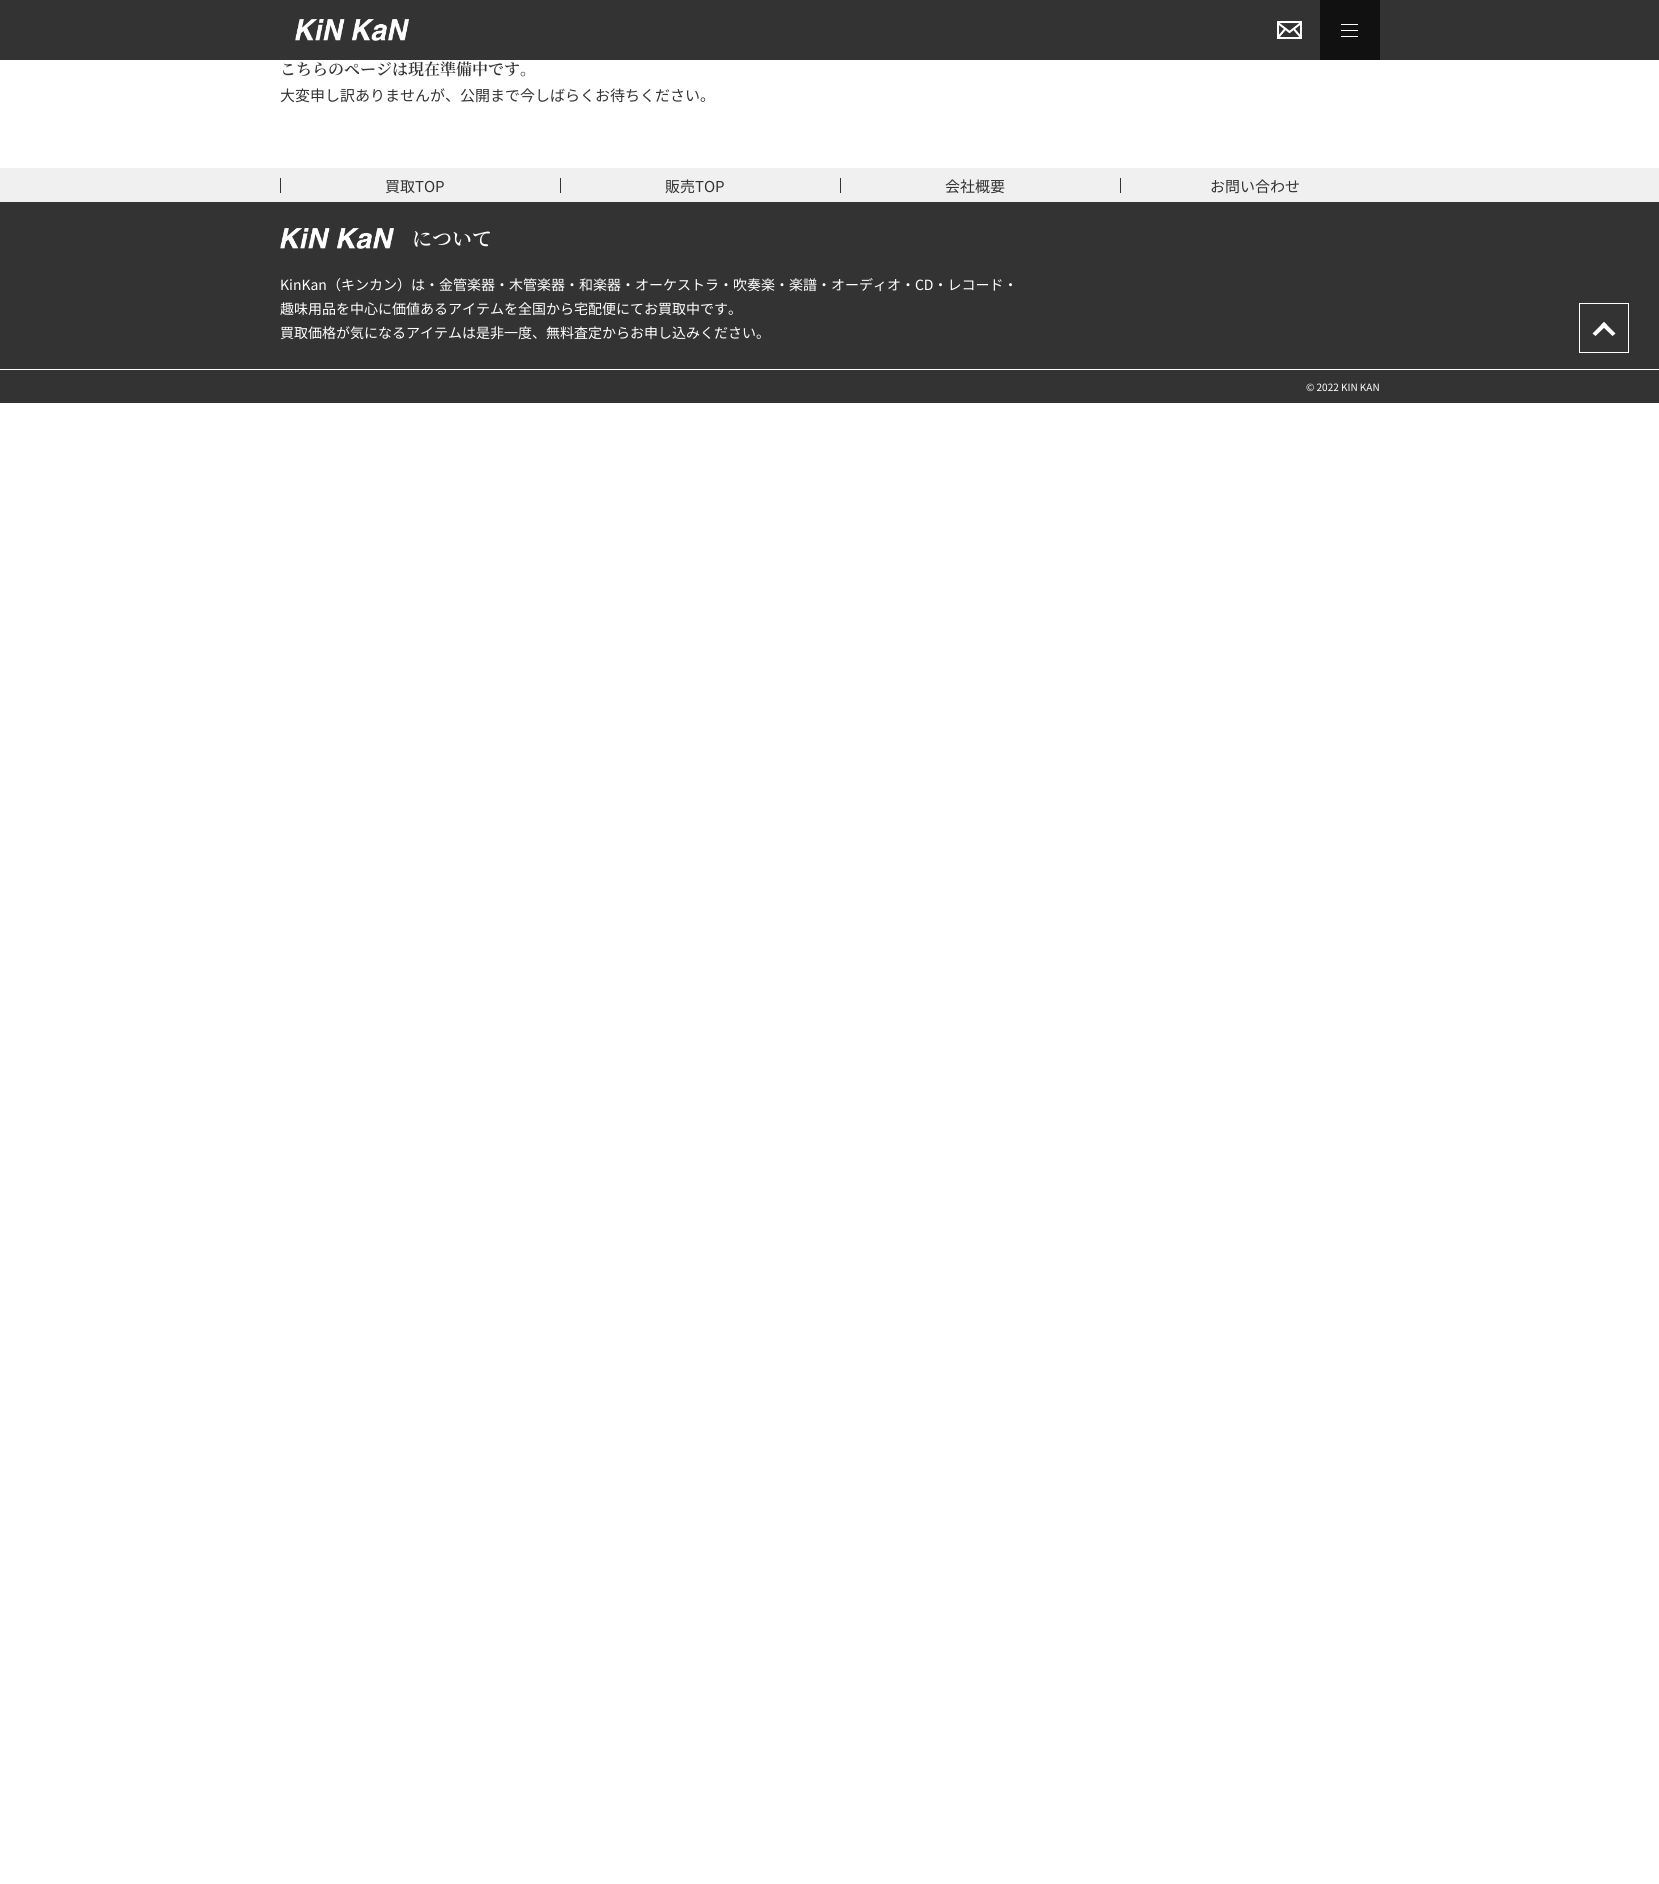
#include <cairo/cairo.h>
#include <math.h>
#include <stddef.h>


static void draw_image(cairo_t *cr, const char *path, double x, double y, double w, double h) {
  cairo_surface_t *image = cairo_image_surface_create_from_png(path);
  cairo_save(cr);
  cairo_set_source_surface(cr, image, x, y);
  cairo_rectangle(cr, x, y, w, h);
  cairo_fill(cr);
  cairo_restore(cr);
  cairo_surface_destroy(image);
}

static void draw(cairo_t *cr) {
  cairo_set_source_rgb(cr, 1, 1, 1);
  cairo_paint(cr);
  cairo_set_source_rgb(cr, 51 / 255.0, 51 / 255.0, 51 / 255.0);
  cairo_rectangle(cr, 0, 0, 1659, 60);
  cairo_fill(cr);
  draw_image(cr, "images/1.png", 295, 19, 114, 22);
  draw_image(cr, "images/2.png", 1277, 21, 25, 18);
  cairo_set_source_rgb(cr, 17 / 255.0, 17 / 255.0, 17 / 255.0);
  cairo_rectangle(cr, 1320, 0, 60, 60);
  cairo_fill(cr);
  cairo_set_source_rgb(cr, 1, 1, 1);
  cairo_rectangle(cr, 1341, 24, 17, 1);
  cairo_fill(cr);
  cairo_rectangle(cr, 1341, 30, 17, 1);
  cairo_fill(cr);
  cairo_rectangle(cr, 1341, 36, 17, 1);
  cairo_fill(cr);
  cairo_set_source_rgb(cr, 51 / 255.0, 51 / 255.0, 51 / 255.0);
  cairo_rectangle(cr, 0, 202, 1659, 201);
  cairo_fill(cr);
  cairo_set_source_rgb(cr, 240 / 255.0, 240 / 255.0, 240 / 255.0);
  cairo_rectangle(cr, 0, 168, 1659, 34);
  cairo_fill(cr);
  cairo_set_source_rgb(cr, 51 / 255.0, 51 / 255.0, 51 / 255.0);
  cairo_rectangle(cr, 280, 178, 1, 15);
  cairo_fill(cr);
  cairo_rectangle(cr, 560, 178, 1, 15);
  cairo_fill(cr);
  cairo_rectangle(cr, 840, 178, 1, 15);
  cairo_fill(cr);
  cairo_rectangle(cr, 1120, 178, 1, 15);
  cairo_fill(cr);
  draw_image(cr, "images/3.png", 280, 228, 114, 21);
  cairo_rectangle(cr, 1579.5, 303.5, 49, 49);
  cairo_set_source_rgb(cr, 1, 1, 1);
  cairo_set_line_width(cr, 1);
  cairo_stroke(cr);
  cairo_new_path(cr);
  cairo_move_to(cr, 1592.5, 333.5);
  cairo_line_to(cr, 1604, 322);
  cairo_line_to(cr, 1607, 325);
  cairo_line_to(cr, 1595.5, 336);
  cairo_close_path(cr);
  cairo_fill(cr);
  cairo_new_path(cr);
  cairo_move_to(cr, 1601, 325);
  cairo_line_to(cr, 1604, 322);
  cairo_line_to(cr, 1615.5, 333.5);
  cairo_line_to(cr, 1612.5, 336);
  cairo_close_path(cr);
  cairo_fill(cr);
  cairo_rectangle(cr, 0, 369, 1659, 1);
  cairo_fill(cr);
  cairo_select_font_face(cr, "Noto Serif JP SemiBold", CAIRO_FONT_SLANT_NORMAL, CAIRO_FONT_WEIGHT_NORMAL);
  cairo_set_font_size(cr, 16);
  cairo_set_source_rgb(cr, 51 / 255.0, 51 / 255.0, 51 / 255.0);
  cairo_move_to(cr, 280, 75);
  cairo_show_text(cr, "こちらのページは現在準備中です。");
  cairo_select_font_face(cr, "Noto Sans JP", CAIRO_FONT_SLANT_NORMAL, CAIRO_FONT_WEIGHT_NORMAL);
  cairo_set_font_size(cr, 15);
  cairo_move_to(cr, 280, 101);
  cairo_show_text(cr, "大変申し訳ありませんが、公開まで今しばらくお待ちください。");
  cairo_move_to(cr, 385, 192);
  cairo_show_text(cr, "買取TOP");
  cairo_move_to(cr, 665, 192);
  cairo_show_text(cr, "販売TOP");
  cairo_move_to(cr, 945, 192);
  cairo_show_text(cr, "会社概要");
  cairo_move_to(cr, 1210, 192);
  cairo_show_text(cr, "お問い合わせ");
  cairo_select_font_face(cr, "Noto Serif JP SemiBold", CAIRO_FONT_SLANT_NORMAL, CAIRO_FONT_WEIGHT_NORMAL);
  cairo_set_font_size(cr, 20);
  cairo_set_source_rgb(cr, 1, 1, 1);
  cairo_move_to(cr, 412, 246);
  cairo_show_text(cr, "について");
  cairo_select_font_face(cr, "Noto Sans JP", CAIRO_FONT_SLANT_NORMAL, CAIRO_FONT_WEIGHT_NORMAL);
  cairo_set_font_size(cr, 14);
  cairo_move_to(cr, 280, 290);
  cairo_show_text(cr, "KinKan（キンカン）は・金管楽器・木管楽器・和楽器・オーケストラ・吹奏楽・楽譜・オーディオ・CD・レコード・");
  cairo_move_to(cr, 280, 314);
  cairo_show_text(cr, "趣味用品を中心に価値あるアイテムを全国から宅配便にてお買取中です。");
  cairo_move_to(cr, 280, 338);
  cairo_show_text(cr, "買取価格が気になるアイテムは是非一度、無料査定からお申し込みください。");
  cairo_set_font_size(cr, 10);
  cairo_move_to(cr, 1306, 391);
  cairo_show_text(cr, "© 2022 KIN KAN");
}

int main(void) {
  cairo_surface_t *surface = cairo_image_surface_create(CAIRO_FORMAT_RGB24, 1659, 1884);
  cairo_t *cr = cairo_create(surface);
  cairo_font_options_t *options = cairo_font_options_create();
  cairo_font_options_set_hint_metrics(options, CAIRO_HINT_METRICS_OFF);
  cairo_font_options_set_hint_style(options, CAIRO_HINT_STYLE_NONE);
  cairo_set_font_options(cr, options);
  cairo_set_miter_limit(cr, 4);
  draw(cr);
  cairo_surface_write_to_png(surface, "out.png");
  cairo_font_options_destroy(options);
  cairo_destroy(cr);
  cairo_surface_destroy(surface);
  return 0;
}
